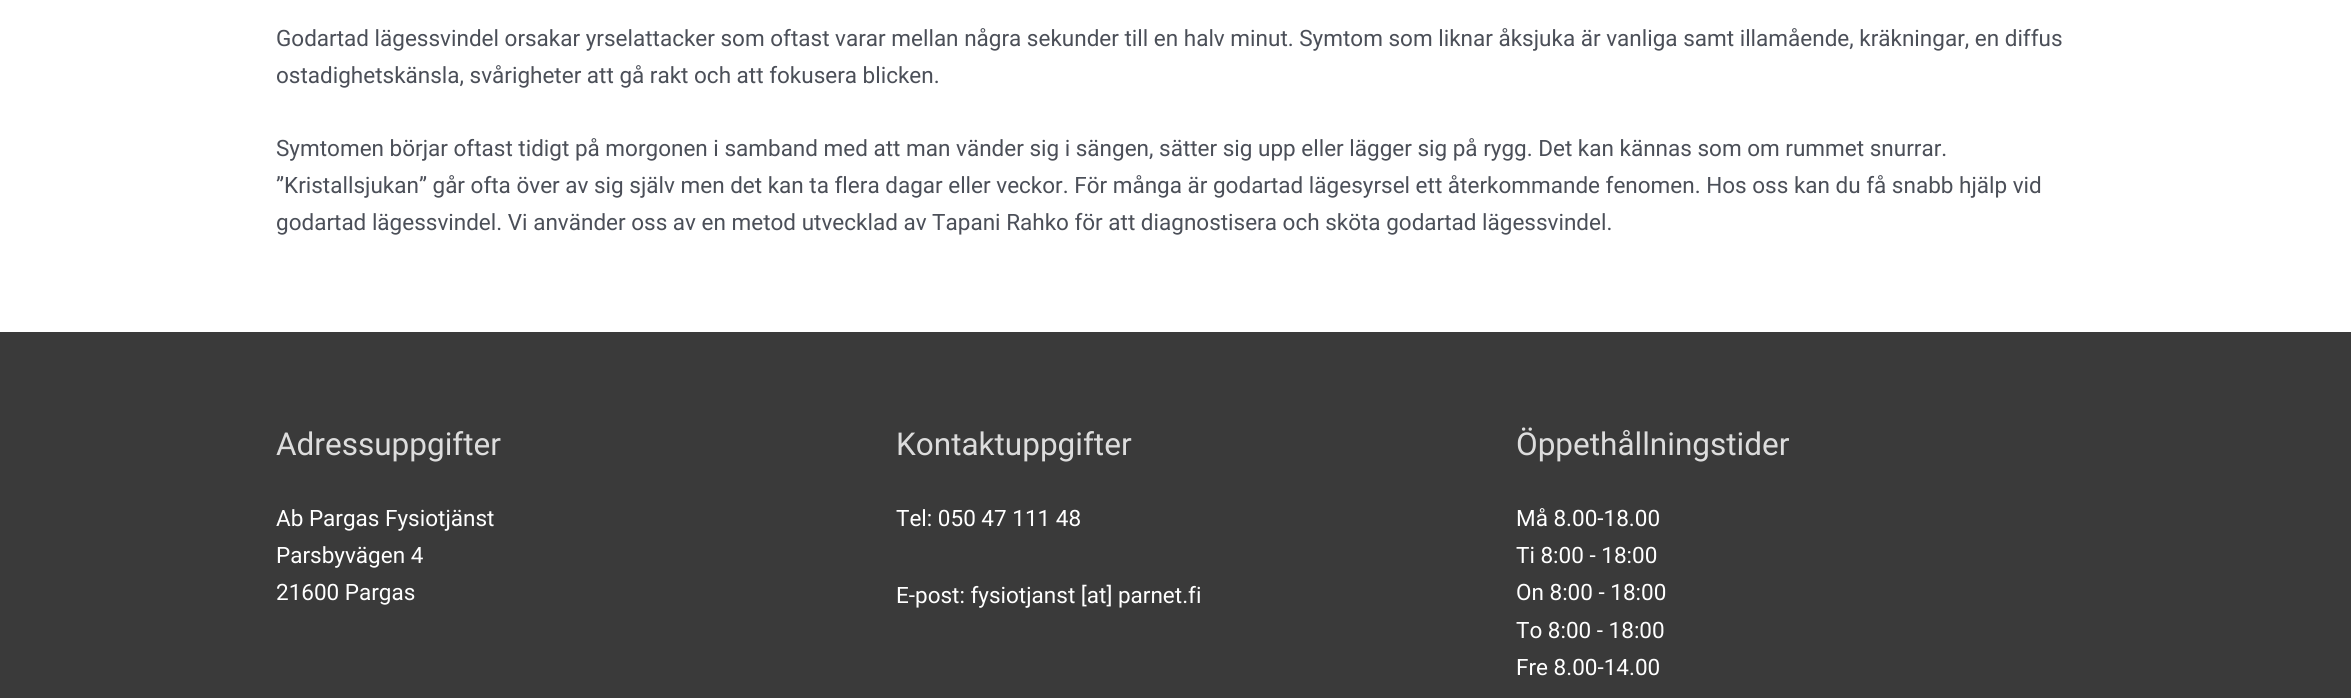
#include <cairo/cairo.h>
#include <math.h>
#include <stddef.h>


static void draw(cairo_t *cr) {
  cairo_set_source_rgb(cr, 1, 1, 1);
  cairo_paint(cr);
  cairo_set_source_rgb(cr, 58 / 255.0, 58 / 255.0, 58 / 255.0);
  cairo_rectangle(cr, 0, 332, 2351, 366);
  cairo_fill(cr);
  cairo_select_font_face(cr, "Roboto", CAIRO_FONT_SLANT_NORMAL, CAIRO_FONT_WEIGHT_NORMAL);
  cairo_set_font_size(cr, 22.5);
  cairo_set_source_rgb(cr, 75 / 255.0, 79 / 255.0, 88 / 255.0);
  cairo_move_to(cr, 276, 46);
  cairo_show_text(cr, "Godartad lägessvindel orsakar yrselattacker som oftast varar mellan några sekunder till en halv minut. Symtom som liknar åksjuka är vanliga samt illamående, kräkningar, en diffus");
  cairo_move_to(cr, 276, 83);
  cairo_show_text(cr, "ostadighetskänsla, svårigheter att gå rakt och att fokusera blicken.");
  cairo_move_to(cr, 276, 156);
  cairo_show_text(cr, "Symtomen börjar oftast tidigt på morgonen i samband med att man vänder sig i sängen, sätter sig upp eller lägger sig på rygg. Det kan kännas som om rummet snurrar.");
  cairo_move_to(cr, 276, 193);
  cairo_show_text(cr, "”Kristallsjukan” går ofta över av sig själv men det kan ta flera dagar eller veckor. För många är godartad lägesyrsel ett återkommande fenomen. Hos oss kan du få snabb hjälp vid");
  cairo_move_to(cr, 276, 230);
  cairo_show_text(cr, "godartad lägessvindel. Vi använder oss av en metod utvecklad av Tapani Rahko för att diagnostisera och sköta godartad lägessvindel.");
  cairo_set_font_size(cr, 31.5);
  cairo_set_source_rgb(cr, 221 / 255.0, 221 / 255.0, 221 / 255.0);
  cairo_move_to(cr, 276, 455);
  cairo_show_text(cr, "Adressuppgifter");
  cairo_set_font_size(cr, 22.5);
  cairo_set_source_rgb(cr, 1, 1, 1);
  cairo_move_to(cr, 276, 526);
  cairo_show_text(cr, "Ab Pargas Fysiotjänst");
  cairo_move_to(cr, 276, 563);
  cairo_show_text(cr, "Parsbyvägen 4");
  cairo_move_to(cr, 276, 600);
  cairo_show_text(cr, "21600 Pargas");
  cairo_set_font_size(cr, 31.5);
  cairo_set_source_rgb(cr, 221 / 255.0, 221 / 255.0, 221 / 255.0);
  cairo_move_to(cr, 896, 455);
  cairo_show_text(cr, "Kontaktuppgifter");
  cairo_set_font_size(cr, 22.5);
  cairo_set_source_rgb(cr, 1, 1, 1);
  cairo_move_to(cr, 896, 526);
  cairo_show_text(cr, "Tel: 050 47 111 48");
  cairo_move_to(cr, 896, 603);
  cairo_show_text(cr, "E-post: fysiotjanst [at] parnet.fi");
  cairo_set_font_size(cr, 31.5);
  cairo_set_source_rgb(cr, 221 / 255.0, 221 / 255.0, 221 / 255.0);
  cairo_move_to(cr, 1516, 455);
  cairo_show_text(cr, "Öppethållningstider");
  cairo_set_font_size(cr, 22.5);
  cairo_set_source_rgb(cr, 1, 1, 1);
  cairo_move_to(cr, 1516, 526);
  cairo_show_text(cr, "Må 8.00-18.00");
  cairo_move_to(cr, 1516, 563);
  cairo_show_text(cr, "Ti 8:00 - 18:00");
  cairo_move_to(cr, 1516, 600);
  cairo_show_text(cr, "On 8:00 - 18:00");
  cairo_move_to(cr, 1516, 638);
  cairo_show_text(cr, "To 8:00 - 18:00");
  cairo_move_to(cr, 1516, 675);
  cairo_show_text(cr, "Fre 8.00-14.00");
}

int main(void) {
  cairo_surface_t *surface = cairo_image_surface_create(CAIRO_FORMAT_RGB24, 2351, 698);
  cairo_t *cr = cairo_create(surface);
  cairo_font_options_t *options = cairo_font_options_create();
  cairo_font_options_set_hint_metrics(options, CAIRO_HINT_METRICS_OFF);
  cairo_font_options_set_hint_style(options, CAIRO_HINT_STYLE_NONE);
  cairo_set_font_options(cr, options);
  cairo_set_miter_limit(cr, 4);
  draw(cr);
  cairo_surface_write_to_png(surface, "out.png");
  cairo_font_options_destroy(options);
  cairo_destroy(cr);
  cairo_surface_destroy(surface);
  return 0;
}
